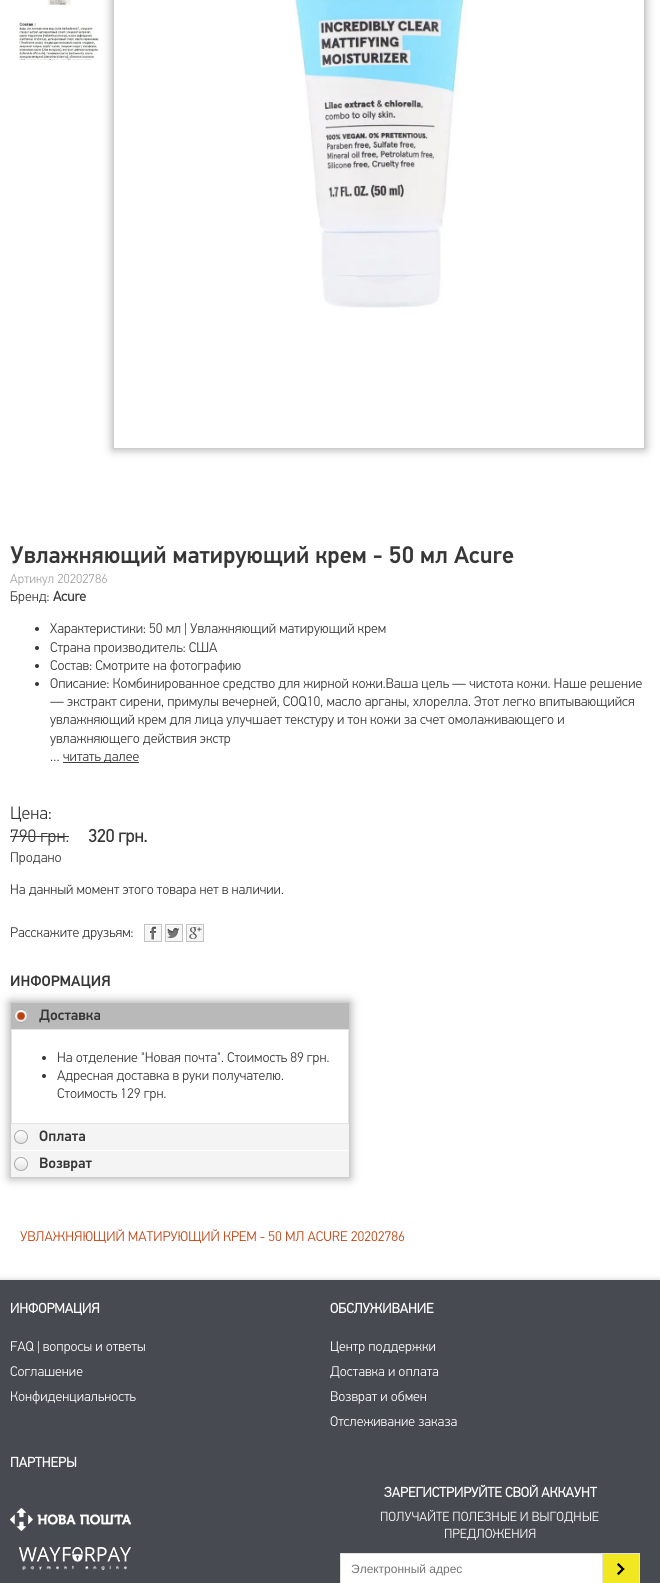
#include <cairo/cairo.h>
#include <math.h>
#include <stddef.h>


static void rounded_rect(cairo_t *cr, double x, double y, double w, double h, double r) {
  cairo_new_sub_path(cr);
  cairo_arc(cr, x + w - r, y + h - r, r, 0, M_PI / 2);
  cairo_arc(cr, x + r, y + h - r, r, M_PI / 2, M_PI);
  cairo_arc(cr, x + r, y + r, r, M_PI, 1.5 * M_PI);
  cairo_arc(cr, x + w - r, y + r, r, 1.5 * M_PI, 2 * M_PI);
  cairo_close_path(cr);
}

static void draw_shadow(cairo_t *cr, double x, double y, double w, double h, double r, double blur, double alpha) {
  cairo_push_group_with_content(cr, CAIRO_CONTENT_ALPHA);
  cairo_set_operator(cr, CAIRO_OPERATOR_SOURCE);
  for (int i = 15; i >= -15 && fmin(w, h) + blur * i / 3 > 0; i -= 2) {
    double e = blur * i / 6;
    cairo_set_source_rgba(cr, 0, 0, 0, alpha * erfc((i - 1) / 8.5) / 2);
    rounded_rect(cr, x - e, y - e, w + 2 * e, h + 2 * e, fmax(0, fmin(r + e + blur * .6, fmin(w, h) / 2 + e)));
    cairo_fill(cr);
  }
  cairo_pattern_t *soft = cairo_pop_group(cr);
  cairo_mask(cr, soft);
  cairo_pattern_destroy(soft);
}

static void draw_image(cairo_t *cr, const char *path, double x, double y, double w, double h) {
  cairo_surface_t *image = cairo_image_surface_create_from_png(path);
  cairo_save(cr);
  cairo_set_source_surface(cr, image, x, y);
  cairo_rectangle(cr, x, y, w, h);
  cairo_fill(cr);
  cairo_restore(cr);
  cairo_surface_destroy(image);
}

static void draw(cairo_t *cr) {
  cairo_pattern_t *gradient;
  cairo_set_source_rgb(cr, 1, 1, 1);
  cairo_paint(cr);
  draw_image(cr, "images/1.png", 47, 0, 24, 5);
  cairo_save(cr);
  cairo_set_fill_rule(cr, CAIRO_FILL_RULE_EVEN_ODD);
  cairo_new_path(cr);
  cairo_move_to(cr, 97, 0);
  cairo_line_to(cr, 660, 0);
  cairo_line_to(cr, 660, 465);
  cairo_line_to(cr, 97, 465);
  cairo_close_path(cr);
  cairo_move_to(cr, 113, -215);
  cairo_line_to(cr, 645, -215);
  cairo_line_to(cr, 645, 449);
  cairo_line_to(cr, 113, 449);
  cairo_close_path(cr);
  cairo_clip(cr);
  cairo_set_source_rgb(cr, 102 / 255.0, 102 / 255.0, 102 / 255.0);
  draw_shadow(cr, 113, -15, 532, 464, 0, 5, 0.6);
  cairo_restore(cr);
  draw_image(cr, "images/2.png", 19, 4, 80, 56);
  cairo_rectangle(cr, 113.5, -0.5, 531, 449);
  cairo_set_source_rgb(cr, 205 / 255.0, 205 / 255.0, 205 / 255.0);
  cairo_set_line_width(cr, 1);
  cairo_stroke(cr);
  draw_image(cr, "images/3.png", 294, 0, 173, 308);
  cairo_set_source_rgb(cr, 55 / 255.0, 55 / 255.0, 55 / 255.0);
  cairo_arc(cr, 37, 629, 2, 0, 2 * M_PI);
  cairo_fill(cr);
  cairo_arc(cr, 37, 648, 2, 0, 2 * M_PI);
  cairo_fill(cr);
  cairo_arc(cr, 37, 666, 2, 0, 2 * M_PI);
  cairo_fill(cr);
  cairo_arc(cr, 37, 684, 2, 0, 2 * M_PI);
  cairo_fill(cr);
  cairo_set_source_rgb(cr, 59 / 255.0, 59 / 255.0, 59 / 255.0);
  cairo_rectangle(cr, 63, 762, 76, 1);
  cairo_fill(cr);
  cairo_set_source_rgb(cr, 55 / 255.0, 55 / 255.0, 55 / 255.0);
  cairo_rectangle(cr, 10, 836, 59, 1);
  cairo_fill(cr);
  cairo_set_source_rgb(cr, 245 / 255.0, 245 / 255.0, 245 / 255.0);
  cairo_rectangle(cr, 145, 926, 16, 15);
  cairo_fill(cr);
  draw_image(cr, "images/4.png", 150, 926, 6, 14);
  cairo_rectangle(cr, 144.5, 924.5, 17, 17);
  cairo_set_source_rgb(cr, 195 / 255.0, 195 / 255.0, 195 / 255.0);
  cairo_stroke(cr);
  cairo_set_source_rgb(cr, 245 / 255.0, 245 / 255.0, 245 / 255.0);
  cairo_rectangle(cr, 166, 926, 16, 15);
  cairo_fill(cr);
  draw_image(cr, "images/5.png", 167, 928, 13, 10);
  cairo_rectangle(cr, 165.5, 924.5, 17, 17);
  cairo_set_source_rgb(cr, 195 / 255.0, 195 / 255.0, 195 / 255.0);
  cairo_stroke(cr);
  cairo_set_source_rgb(cr, 245 / 255.0, 245 / 255.0, 245 / 255.0);
  cairo_rectangle(cr, 187, 926, 16, 15);
  cairo_fill(cr);
  draw_image(cr, "images/6.png", 189, 927, 13, 12);
  cairo_rectangle(cr, 186.5, 924.5, 17, 17);
  cairo_set_source_rgb(cr, 195 / 255.0, 195 / 255.0, 195 / 255.0);
  cairo_stroke(cr);
  cairo_save(cr);
  cairo_set_fill_rule(cr, CAIRO_FILL_RULE_EVEN_ODD);
  cairo_new_path(cr);
  cairo_move_to(cr, 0, 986);
  cairo_line_to(cr, 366, 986);
  cairo_line_to(cr, 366, 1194);
  cairo_line_to(cr, 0, 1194);
  cairo_close_path(cr);
  cairo_move_to(cr, 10, 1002);
  cairo_line_to(cr, 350, 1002);
  cairo_line_to(cr, 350, 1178);
  cairo_line_to(cr, 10, 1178);
  cairo_close_path(cr);
  cairo_clip(cr);
  cairo_set_source_rgb(cr, 102 / 255.0, 102 / 255.0, 102 / 255.0);
  draw_shadow(cr, 10, 1002, 340, 176, 0, 5, 0.6);
  cairo_restore(cr);
  cairo_rectangle(cr, 10.5, 1002.5, 339, 175);
  cairo_set_source_rgb(cr, 205 / 255.0, 205 / 255.0, 205 / 255.0);
  cairo_stroke(cr);
  cairo_set_source_rgb(cr, 185 / 255.0, 185 / 255.0, 185 / 255.0);
  cairo_rectangle(cr, 11, 1003, 338, 26);
  cairo_fill(cr);
  cairo_save(cr);
  rounded_rect(cr, 14, 1009, 14, 14, 7);
  cairo_clip(cr);
  gradient = cairo_pattern_create_linear(21, 1010, 21, 1022);
  cairo_pattern_add_color_stop_rgba(gradient, 0, 1, 1, 1, 1);
  cairo_pattern_add_color_stop_rgba(gradient, 1, 228 / 255.0, 228 / 255.0, 228 / 255.0, 1);
  cairo_set_source(cr, gradient);
  cairo_pattern_destroy(gradient);
  cairo_rectangle(cr, 14, 1010, 14, 12);
  cairo_fill(cr);
  cairo_restore(cr);
  cairo_arc(cr, 21, 1016, 6.5, 0, 2 * M_PI);
  cairo_set_source_rgb(cr, 170 / 255.0, 170 / 255.0, 170 / 255.0);
  cairo_stroke(cr);
  draw_image(cr, "images/7.png", 17, 1012, 8, 8);
  cairo_rectangle(cr, 11.5, 1029.5, 337, 94);
  cairo_set_source_rgb(cr, 228 / 255.0, 228 / 255.0, 228 / 255.0);
  cairo_stroke(cr);
  cairo_set_source_rgb(cr, 55 / 255.0, 55 / 255.0, 55 / 255.0);
  cairo_arc(cr, 44, 1058, 2, 0, 2 * M_PI);
  cairo_fill(cr);
  cairo_arc(cr, 44, 1076, 2, 0, 2 * M_PI);
  cairo_fill(cr);
  cairo_set_source_rgb(cr, 244 / 255.0, 244 / 255.0, 244 / 255.0);
  cairo_rectangle(cr, 11, 1124, 338, 26);
  cairo_fill(cr);
  cairo_save(cr);
  rounded_rect(cr, 14, 1130, 14, 14, 7);
  cairo_clip(cr);
  gradient = cairo_pattern_create_linear(21, 1131, 21, 1143);
  cairo_pattern_add_color_stop_rgba(gradient, 0, 1, 1, 1, 1);
  cairo_pattern_add_color_stop_rgba(gradient, 1, 228 / 255.0, 228 / 255.0, 228 / 255.0, 1);
  cairo_set_source(cr, gradient);
  cairo_pattern_destroy(gradient);
  cairo_rectangle(cr, 14, 1131, 14, 12);
  cairo_fill(cr);
  cairo_restore(cr);
  cairo_arc(cr, 21, 1137, 6.5, 0, 2 * M_PI);
  cairo_set_source_rgb(cr, 170 / 255.0, 170 / 255.0, 170 / 255.0);
  cairo_stroke(cr);
  cairo_set_source_rgb(cr, 244 / 255.0, 244 / 255.0, 244 / 255.0);
  cairo_rectangle(cr, 11, 1151, 338, 26);
  cairo_fill(cr);
  cairo_save(cr);
  rounded_rect(cr, 14, 1157, 14, 14, 7);
  cairo_clip(cr);
  gradient = cairo_pattern_create_linear(21, 1158, 21, 1170);
  cairo_pattern_add_color_stop_rgba(gradient, 0, 1, 1, 1, 1);
  cairo_pattern_add_color_stop_rgba(gradient, 1, 228 / 255.0, 228 / 255.0, 228 / 255.0, 1);
  cairo_set_source(cr, gradient);
  cairo_pattern_destroy(gradient);
  cairo_rectangle(cr, 14, 1158, 14, 12);
  cairo_fill(cr);
  cairo_restore(cr);
  cairo_arc(cr, 21, 1164, 6.5, 0, 2 * M_PI);
  cairo_set_source_rgb(cr, 170 / 255.0, 170 / 255.0, 170 / 255.0);
  cairo_stroke(cr);
  cairo_set_source_rgb(cr, 0, 0, 0);
  draw_shadow(cr, 0, 1283, 660, 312, 0, 4, 0.45);
  cairo_set_source_rgb(cr, 71 / 255.0, 74 / 255.0, 81 / 255.0);
  cairo_rectangle(cr, 0, 1280, 660, 303);
  cairo_fill(cr);
  draw_image(cr, "images/8.png", 10, 1508, 121, 23);
  draw_image(cr, "images/9.png", 19, 1547, 112, 23);
  cairo_set_source_rgb(cr, 1, 1, 1);
  cairo_rectangle(cr, 341, 1554, 261, 29);
  cairo_fill(cr);
  cairo_rectangle(cr, 340.5, 1553.5, 299, 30);
  cairo_set_source_rgb(cr, 226 / 255.0, 226 / 255.0, 226 / 255.0);
  cairo_stroke(cr);
  cairo_set_source_rgb(cr, 241 / 255.0, 232 / 255.0, 33 / 255.0);
  cairo_rectangle(cr, 603, 1554, 36, 29);
  cairo_fill(cr);
  cairo_set_source_rgb(cr, 226 / 255.0, 226 / 255.0, 226 / 255.0);
  cairo_rectangle(cr, 602, 1554, 1, 29);
  cairo_fill(cr);
  draw_image(cr, "images/10.png", 617, 1563, 8, 12);
  cairo_select_font_face(cr, "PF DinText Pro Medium", CAIRO_FONT_SLANT_NORMAL, CAIRO_FONT_WEIGHT_NORMAL);
  cairo_set_font_size(cr, 24);
  cairo_set_source_rgb(cr, 55 / 255.0, 55 / 255.0, 55 / 255.0);
  cairo_move_to(cr, 10, 563);
  cairo_show_text(cr, "Увлажняющий матирующий крем - 50 мл Acure");
  cairo_select_font_face(cr, "PF DinText Pro Light", CAIRO_FONT_SLANT_NORMAL, CAIRO_FONT_WEIGHT_NORMAL);
  cairo_set_font_size(cr, 13);
  cairo_set_source_rgb(cr, 162 / 255.0, 162 / 255.0, 162 / 255.0);
  cairo_move_to(cr, 10, 583);
  cairo_show_text(cr, "Артикул 20202786");
  cairo_set_font_size(cr, 14);
  cairo_set_source_rgb(cr, 55 / 255.0, 55 / 255.0, 55 / 255.0);
  cairo_move_to(cr, 10, 601);
  cairo_show_text(cr, "Бренд:");
  cairo_select_font_face(cr, "PF DinText Pro", CAIRO_FONT_SLANT_NORMAL, CAIRO_FONT_WEIGHT_BOLD);
  cairo_move_to(cr, 53, 601);
  cairo_show_text(cr, "Acure");
  cairo_select_font_face(cr, "PF DinText Pro Light", CAIRO_FONT_SLANT_NORMAL, CAIRO_FONT_WEIGHT_NORMAL);
  cairo_move_to(cr, 50, 633);
  cairo_show_text(cr, "Характеристики: 50 мл | Увлажняющий матирующий крем");
  cairo_move_to(cr, 50, 652);
  cairo_show_text(cr, "Страна производитель: США");
  cairo_move_to(cr, 50, 670);
  cairo_show_text(cr, "Состав: Смотрите на фотографию");
  cairo_move_to(cr, 50, 688);
  cairo_show_text(cr, "Описание: Комбинированное средство для жирной кожи.Ваша цель — чистота кожи. Наше решение");
  cairo_move_to(cr, 50, 706);
  cairo_show_text(cr, "— экстракт сирени, примулы вечерней, COQ10, масло арганы, хлорелла. Этот легко впитывающийся");
  cairo_move_to(cr, 50, 724);
  cairo_show_text(cr, "увлажняющий крем для лица улучшает текстуру и тон кожи за счет омолаживающего и");
  cairo_move_to(cr, 50, 743);
  cairo_show_text(cr, "увлажняющего действия экстр");
  cairo_move_to(cr, 50, 761);
  cairo_show_text(cr, "…");
  cairo_move_to(cr, 63, 761);
  cairo_show_text(cr, "читать далее");
  cairo_set_font_size(cr, 18);
  cairo_move_to(cr, 10, 819);
  cairo_show_text(cr, "Цена:");
  cairo_move_to(cr, 10, 842);
  cairo_show_text(cr, "790 грн.");
  cairo_select_font_face(cr, "PF DinText Pro", CAIRO_FONT_SLANT_NORMAL, CAIRO_FONT_WEIGHT_BOLD);
  cairo_move_to(cr, 88, 842);
  cairo_show_text(cr, "320 грн.");
  cairo_select_font_face(cr, "PF DinText Pro Light", CAIRO_FONT_SLANT_NORMAL, CAIRO_FONT_WEIGHT_NORMAL);
  cairo_set_font_size(cr, 14);
  cairo_move_to(cr, 10, 862);
  cairo_show_text(cr, "Продано");
  cairo_move_to(cr, 10, 894);
  cairo_show_text(cr, "На данный момент этого товара нет в наличии.");
  cairo_move_to(cr, 10, 937);
  cairo_show_text(cr, "Расскажите друзьям:");
  cairo_select_font_face(cr, "PF DinText Pro Medium", CAIRO_FONT_SLANT_NORMAL, CAIRO_FONT_WEIGHT_NORMAL);
  cairo_set_font_size(cr, 15);
  cairo_move_to(cr, 10, 986);
  cairo_show_text(cr, "ИНФОРМАЦИЯ");
  cairo_move_to(cr, 39, 1020);
  cairo_show_text(cr, "Доставка");
  cairo_select_font_face(cr, "PF DinText Pro Light", CAIRO_FONT_SLANT_NORMAL, CAIRO_FONT_WEIGHT_NORMAL);
  cairo_set_font_size(cr, 14);
  cairo_move_to(cr, 57, 1062);
  cairo_show_text(cr, "На отделение \"Новая почта\". Стоимость 89 грн.");
  cairo_move_to(cr, 57, 1080);
  cairo_show_text(cr, "Адресная доставка в руки получателю.");
  cairo_move_to(cr, 57, 1098);
  cairo_show_text(cr, "Стоимость 129 грн.");
  cairo_select_font_face(cr, "PF DinText Pro Medium", CAIRO_FONT_SLANT_NORMAL, CAIRO_FONT_WEIGHT_NORMAL);
  cairo_set_font_size(cr, 15);
  cairo_move_to(cr, 39, 1141);
  cairo_show_text(cr, "Оплата");
  cairo_move_to(cr, 39, 1168);
  cairo_show_text(cr, "Возврат");
  cairo_select_font_face(cr, "PF DinText Pro Light", CAIRO_FONT_SLANT_NORMAL, CAIRO_FONT_WEIGHT_NORMAL);
  cairo_set_font_size(cr, 14);
  cairo_set_source_rgb(cr, 190 / 255.0, 66 / 255.0, 16 / 255.0);
  cairo_move_to(cr, 20, 1241);
  cairo_show_text(cr, "УВЛАЖНЯЮЩИЙ МАТИРУЮЩИЙ КРЕМ - 50 МЛ ACURE 20202786");
  cairo_select_font_face(cr, "PF DinText Pro", CAIRO_FONT_SLANT_NORMAL, CAIRO_FONT_WEIGHT_BOLD);
  cairo_set_source_rgb(cr, 1, 1, 1);
  cairo_move_to(cr, 10, 1313);
  cairo_show_text(cr, "ИНФОРМАЦИЯ");
  cairo_select_font_face(cr, "PF DinText Pro Light", CAIRO_FONT_SLANT_NORMAL, CAIRO_FONT_WEIGHT_NORMAL);
  cairo_move_to(cr, 10, 1351);
  cairo_show_text(cr, "FAQ | вопросы и ответы");
  cairo_move_to(cr, 10, 1376);
  cairo_show_text(cr, "Соглашение");
  cairo_move_to(cr, 10, 1401);
  cairo_show_text(cr, "Конфиденциальность");
  cairo_select_font_face(cr, "PF DinText Pro", CAIRO_FONT_SLANT_NORMAL, CAIRO_FONT_WEIGHT_BOLD);
  cairo_move_to(cr, 330, 1313);
  cairo_show_text(cr, "ОБСЛУЖИВАНИЕ");
  cairo_select_font_face(cr, "PF DinText Pro Light", CAIRO_FONT_SLANT_NORMAL, CAIRO_FONT_WEIGHT_NORMAL);
  cairo_move_to(cr, 330, 1351);
  cairo_show_text(cr, "Центр поддержки");
  cairo_move_to(cr, 330, 1376);
  cairo_show_text(cr, "Доставка и оплата");
  cairo_move_to(cr, 330, 1401);
  cairo_show_text(cr, "Возврат и обмен");
  cairo_move_to(cr, 330, 1426);
  cairo_show_text(cr, "Отслеживание заказа");
  cairo_select_font_face(cr, "PF DinText Pro", CAIRO_FONT_SLANT_NORMAL, CAIRO_FONT_WEIGHT_BOLD);
  cairo_move_to(cr, 10, 1467);
  cairo_show_text(cr, "ПАРТНЕРЫ");
  cairo_move_to(cr, 384, 1497);
  cairo_show_text(cr, "ЗАРЕГИСТРИРУЙТЕ СВОЙ АККАУНТ");
  cairo_select_font_face(cr, "PF DinText Pro Light", CAIRO_FONT_SLANT_NORMAL, CAIRO_FONT_WEIGHT_NORMAL);
  cairo_set_font_size(cr, 13.25);
  cairo_move_to(cr, 380, 1521);
  cairo_show_text(cr, "ПОЛУЧАЙТЕ ПОЛЕЗНЫЕ И ВЫГОДНЫЕ");
  cairo_move_to(cr, 444, 1538);
  cairo_show_text(cr, "ПРЕДЛОЖЕНИЯ");
  cairo_select_font_face(cr, "Liberation Sans", CAIRO_FONT_SLANT_NORMAL, CAIRO_FONT_WEIGHT_NORMAL);
  cairo_set_font_size(cr, 12);
  cairo_set_source_rgb(cr, 117 / 255.0, 117 / 255.0, 117 / 255.0);
  cairo_move_to(cr, 351, 1573);
  cairo_show_text(cr, "Электронный адрес");
}

int main(void) {
  cairo_surface_t *surface = cairo_image_surface_create(CAIRO_FORMAT_RGB24, 660, 1583);
  cairo_t *cr = cairo_create(surface);
  cairo_font_options_t *options = cairo_font_options_create();
  cairo_font_options_set_hint_metrics(options, CAIRO_HINT_METRICS_OFF);
  cairo_font_options_set_hint_style(options, CAIRO_HINT_STYLE_NONE);
  cairo_set_font_options(cr, options);
  cairo_set_miter_limit(cr, 4);
  draw(cr);
  cairo_surface_write_to_png(surface, "out.png");
  cairo_font_options_destroy(options);
  cairo_destroy(cr);
  cairo_surface_destroy(surface);
  return 0;
}
